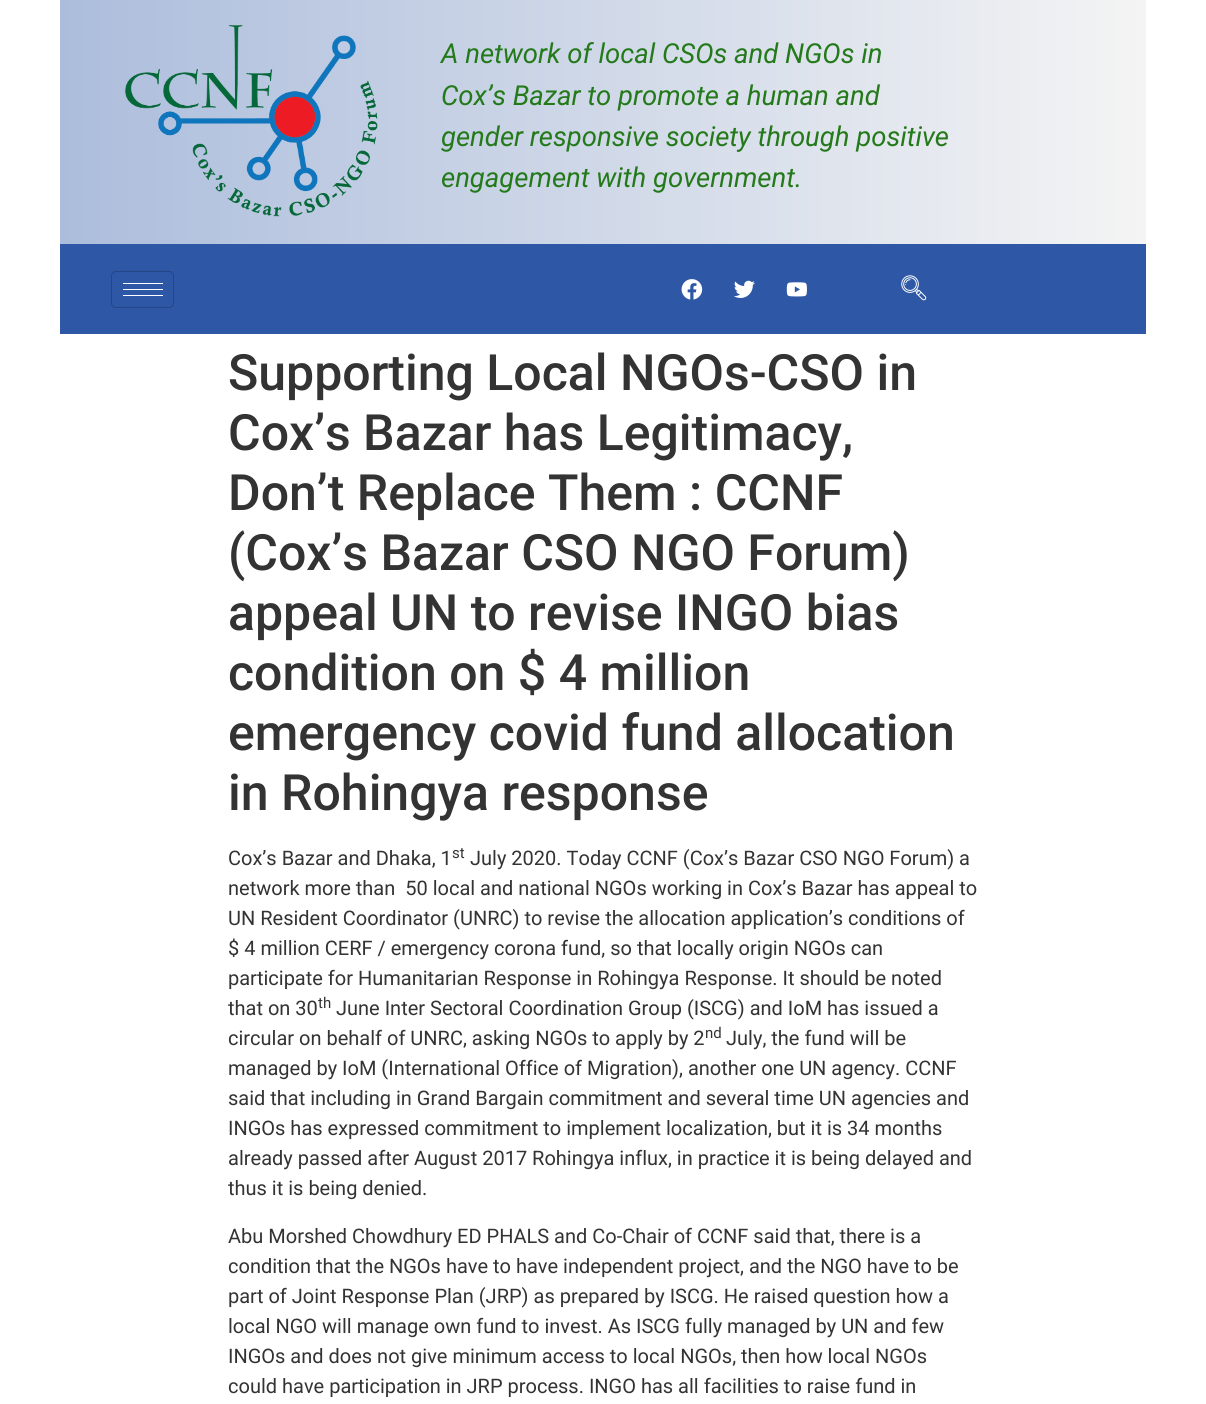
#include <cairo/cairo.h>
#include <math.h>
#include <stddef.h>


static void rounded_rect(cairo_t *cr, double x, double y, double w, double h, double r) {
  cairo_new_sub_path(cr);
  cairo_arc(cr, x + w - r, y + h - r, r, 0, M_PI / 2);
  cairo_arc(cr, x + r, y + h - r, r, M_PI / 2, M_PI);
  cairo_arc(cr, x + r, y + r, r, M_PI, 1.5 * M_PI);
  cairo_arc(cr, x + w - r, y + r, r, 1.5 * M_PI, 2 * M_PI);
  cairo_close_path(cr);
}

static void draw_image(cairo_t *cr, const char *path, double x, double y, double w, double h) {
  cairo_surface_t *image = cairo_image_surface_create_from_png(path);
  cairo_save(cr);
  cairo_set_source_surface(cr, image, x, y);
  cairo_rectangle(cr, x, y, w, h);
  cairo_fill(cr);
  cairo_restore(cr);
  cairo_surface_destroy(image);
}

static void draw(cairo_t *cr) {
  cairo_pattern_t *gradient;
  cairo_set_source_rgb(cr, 1, 1, 1);
  cairo_paint(cr);
  gradient = cairo_pattern_create_linear(1146, 122, 60, 122);
  cairo_pattern_add_color_stop_rgba(gradient, 0, 244 / 255.0, 244 / 255.0, 244 / 255.0, 1);
  cairo_pattern_add_color_stop_rgba(gradient, 1, 172 / 255.0, 189 / 255.0, 220 / 255.0, 1);
  cairo_set_source(cr, gradient);
  cairo_pattern_destroy(gradient);
  cairo_rectangle(cr, 60, 0, 1086, 244);
  cairo_fill(cr);
  draw_image(cr, "images/1.png", 125, 25, 253, 192);
  cairo_set_source_rgb(cr, 46 / 255.0, 88 / 255.0, 166 / 255.0);
  cairo_rectangle(cr, 60, 244, 1086, 90);
  cairo_fill(cr);
  rounded_rect(cr, 111.5, 271.5, 62, 36, 4.5);
  cairo_set_source_rgb(cr, 37 / 255.0, 70 / 255.0, 133 / 255.0);
  cairo_set_line_width(cr, 1);
  cairo_stroke(cr);
  cairo_set_source_rgb(cr, 1, 1, 1);
  cairo_rectangle(cr, 123, 283, 40, 1);
  cairo_fill(cr);
  cairo_rectangle(cr, 123, 289, 40, 1);
  cairo_fill(cr);
  cairo_rectangle(cr, 123, 295, 40, 1);
  cairo_fill(cr);
  draw_image(cr, "images/2.png", 681, 279, 22, 21);
  draw_image(cr, "images/3.png", 734, 280, 21, 18);
  draw_image(cr, "images/4.png", 786, 282, 21, 15);
  draw_image(cr, "images/5.png", 901, 275, 26, 26);
  cairo_select_font_face(cr, "Roboto", CAIRO_FONT_SLANT_ITALIC, CAIRO_FONT_WEIGHT_NORMAL);
  cairo_set_font_size(cr, 27.5);
  cairo_set_source_rgb(cr, 36 / 255.0, 122 / 255.0, 26 / 255.0);
  cairo_move_to(cr, 441, 63);
  cairo_show_text(cr, "A network of local CSOs and NGOs in");
  cairo_move_to(cr, 441, 105);
  cairo_show_text(cr, "Cox’s Bazar to promote a human and");
  cairo_move_to(cr, 441, 146);
  cairo_show_text(cr, "gender responsive society through positive");
  cairo_move_to(cr, 441, 187);
  cairo_show_text(cr, "engagement with government.");
  cairo_select_font_face(cr, "Roboto Medium", CAIRO_FONT_SLANT_NORMAL, CAIRO_FONT_WEIGHT_NORMAL);
  cairo_set_font_size(cr, 50);
  cairo_set_source_rgb(cr, 51 / 255.0, 51 / 255.0, 51 / 255.0);
  cairo_move_to(cr, 228, 390);
  cairo_show_text(cr, "Supporting Local NGOs-CSO in");
  cairo_move_to(cr, 228, 450);
  cairo_show_text(cr, "Cox’s Bazar has Legitimacy,");
  cairo_move_to(cr, 228, 510);
  cairo_show_text(cr, "Don’t Replace Them : CCNF");
  cairo_move_to(cr, 228, 570);
  cairo_show_text(cr, "(Cox’s Bazar CSO NGO Forum)");
  cairo_move_to(cr, 228, 630);
  cairo_show_text(cr, "appeal UN to revise INGO bias");
  cairo_move_to(cr, 228, 690);
  cairo_show_text(cr, "condition on $ 4 million");
  cairo_move_to(cr, 228, 750);
  cairo_show_text(cr, "emergency covid fund allocation");
  cairo_move_to(cr, 228, 810);
  cairo_show_text(cr, "in Rohingya response");
  cairo_select_font_face(cr, "Roboto", CAIRO_FONT_SLANT_NORMAL, CAIRO_FONT_WEIGHT_NORMAL);
  cairo_set_font_size(cr, 20);
  cairo_move_to(cr, 228, 865);
  cairo_show_text(cr, "Cox’s Bazar and Dhaka, 1");
  cairo_set_font_size(cr, 15);
  cairo_move_to(cr, 452, 858);
  cairo_show_text(cr, "st");
  cairo_set_font_size(cr, 20);
  cairo_move_to(cr, 470, 865);
  cairo_show_text(cr, "July 2020. Today CCNF (Cox’s Bazar CSO NGO Forum) a");
  cairo_move_to(cr, 228, 895);
  cairo_show_text(cr, "network more than  50 local and national NGOs working in Cox’s Bazar has appeal to");
  cairo_move_to(cr, 228, 925);
  cairo_show_text(cr, "UN Resident Coordinator (UNRC) to revise the allocation application’s conditions of");
  cairo_move_to(cr, 228, 955);
  cairo_show_text(cr, "$ 4 million CERF / emergency corona fund, so that locally origin NGOs can");
  cairo_move_to(cr, 228, 985);
  cairo_show_text(cr, "participate for Humanitarian Response in Rohingya Response. It should be noted");
  cairo_move_to(cr, 228, 1015);
  cairo_show_text(cr, "that on 30");
  cairo_set_font_size(cr, 15);
  cairo_move_to(cr, 318, 1008);
  cairo_show_text(cr, "th");
  cairo_set_font_size(cr, 20);
  cairo_move_to(cr, 336, 1015);
  cairo_show_text(cr, "June Inter Sectoral Coordination Group (ISCG) and IoM has issued a");
  cairo_move_to(cr, 228, 1045);
  cairo_show_text(cr, "circular on behalf of UNRC, asking NGOs to apply by 2");
  cairo_set_font_size(cr, 15);
  cairo_move_to(cr, 705, 1038);
  cairo_show_text(cr, "nd");
  cairo_set_font_size(cr, 20);
  cairo_move_to(cr, 726, 1045);
  cairo_show_text(cr, "July, the fund will be");
  cairo_move_to(cr, 228, 1075);
  cairo_show_text(cr, "managed by IoM (International Office of Migration), another one UN agency. CCNF");
  cairo_move_to(cr, 228, 1105);
  cairo_show_text(cr, "said that including in Grand Bargain commitment and several time UN agencies and");
  cairo_move_to(cr, 228, 1135);
  cairo_show_text(cr, "INGOs has expressed commitment to implement localization, but it is 34 months");
  cairo_move_to(cr, 228, 1165);
  cairo_show_text(cr, "already passed after August 2017 Rohingya influx, in practice it is being delayed and");
  cairo_move_to(cr, 228, 1195);
  cairo_show_text(cr, "thus it is being denied.");
  cairo_move_to(cr, 228, 1243);
  cairo_show_text(cr, "Abu Morshed Chowdhury ED PHALS and Co-Chair of CCNF said that, there is a");
  cairo_move_to(cr, 228, 1273);
  cairo_show_text(cr, "condition that the NGOs have to have independent project, and the NGO have to be");
  cairo_move_to(cr, 228, 1303);
  cairo_show_text(cr, "part of Joint Response Plan (JRP) as prepared by ISCG. He raised question how a");
  cairo_move_to(cr, 228, 1333);
  cairo_show_text(cr, "local NGO will manage own fund to invest. As ISCG fully managed by UN and few");
  cairo_move_to(cr, 228, 1363);
  cairo_show_text(cr, "INGOs and does not give minimum access to local NGOs, then how local NGOs");
  cairo_move_to(cr, 228, 1393);
  cairo_show_text(cr, "could have participation in JRP process. INGO has all facilities to raise fund in");
}

int main(void) {
  cairo_surface_t *surface = cairo_image_surface_create(CAIRO_FORMAT_RGB24, 1206, 1404);
  cairo_t *cr = cairo_create(surface);
  cairo_font_options_t *options = cairo_font_options_create();
  cairo_font_options_set_hint_metrics(options, CAIRO_HINT_METRICS_OFF);
  cairo_font_options_set_hint_style(options, CAIRO_HINT_STYLE_NONE);
  cairo_set_font_options(cr, options);
  cairo_set_miter_limit(cr, 4);
  draw(cr);
  cairo_surface_write_to_png(surface, "out.png");
  cairo_font_options_destroy(options);
  cairo_destroy(cr);
  cairo_surface_destroy(surface);
  return 0;
}
